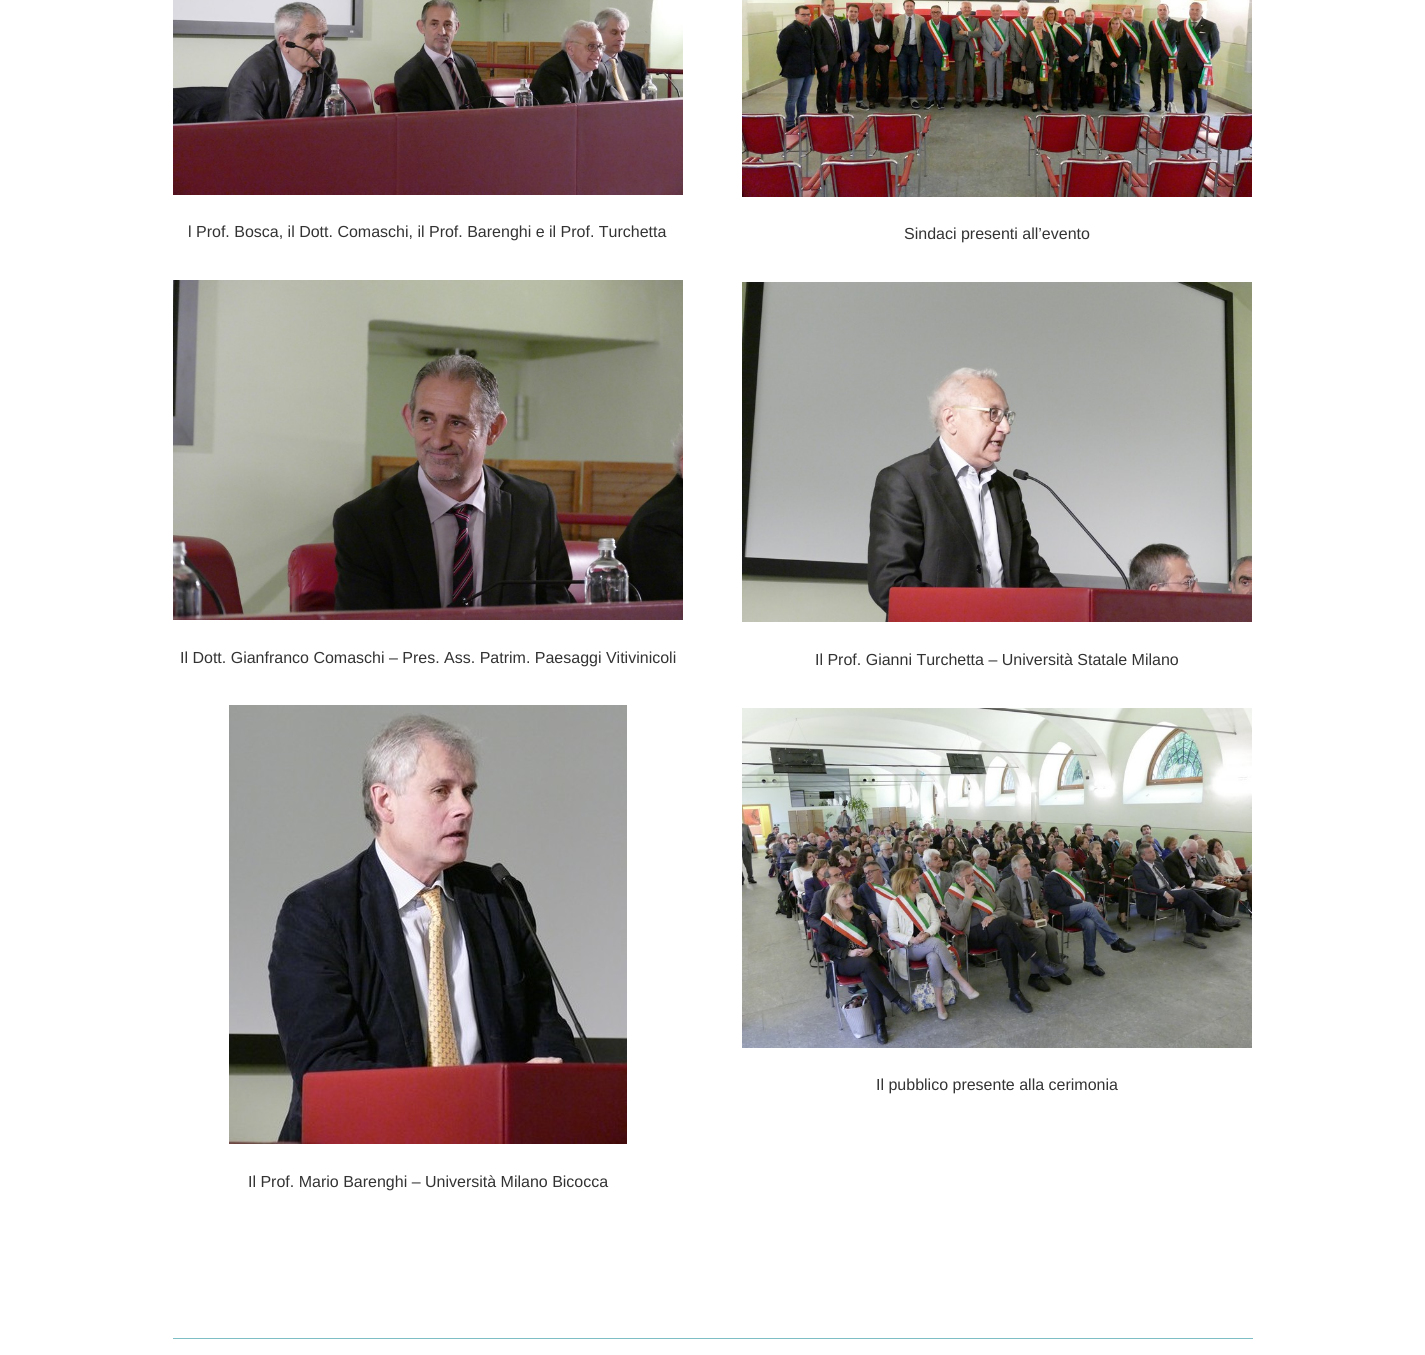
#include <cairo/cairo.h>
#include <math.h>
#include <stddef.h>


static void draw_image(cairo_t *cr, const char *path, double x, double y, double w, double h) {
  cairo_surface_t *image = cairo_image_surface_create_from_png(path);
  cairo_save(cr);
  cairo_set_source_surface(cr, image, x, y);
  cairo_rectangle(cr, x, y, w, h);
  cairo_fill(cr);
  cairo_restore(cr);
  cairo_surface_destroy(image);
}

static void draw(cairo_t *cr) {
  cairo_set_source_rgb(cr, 1, 1, 1);
  cairo_paint(cr);
  draw_image(cr, "images/1.png", 173, 0, 510, 195);
  draw_image(cr, "images/2.png", 173, 280, 510, 340);
  draw_image(cr, "images/3.png", 229, 705, 398, 439);
  draw_image(cr, "images/4.png", 742, 0, 510, 197);
  draw_image(cr, "images/5.png", 742, 282, 510, 340);
  draw_image(cr, "images/6.png", 742, 708, 510, 340);
  cairo_set_source_rgb(cr, 126 / 255.0, 190 / 255.0, 197 / 255.0);
  cairo_rectangle(cr, 173, 1338, 1080, 1);
  cairo_fill(cr);
  cairo_select_font_face(cr, "Liberation Sans", CAIRO_FONT_SLANT_NORMAL, CAIRO_FONT_WEIGHT_NORMAL);
  cairo_set_font_size(cr, 16);
  cairo_set_source_rgb(cr, 51 / 255.0, 51 / 255.0, 51 / 255.0);
  cairo_move_to(cr, 188, 237);
  cairo_show_text(cr, "l Prof. Bosca, il Dott. Comaschi, il Prof. Barenghi e il Prof. Turchetta");
  cairo_move_to(cr, 180, 663);
  cairo_show_text(cr, "Il Dott. Gianfranco Comaschi – Pres. Ass. Patrim. Paesaggi Vitivinicoli");
  cairo_move_to(cr, 248, 1187);
  cairo_show_text(cr, "Il Prof. Mario Barenghi – Università Milano Bicocca");
  cairo_move_to(cr, 904, 239);
  cairo_show_text(cr, "Sindaci presenti all’evento");
  cairo_move_to(cr, 815, 665);
  cairo_show_text(cr, "Il Prof. Gianni Turchetta – Università Statale Milano");
  cairo_move_to(cr, 876, 1090);
  cairo_show_text(cr, "Il pubblico presente alla cerimonia");
}

int main(void) {
  cairo_surface_t *surface = cairo_image_surface_create(CAIRO_FORMAT_RGB24, 1425, 1355);
  cairo_t *cr = cairo_create(surface);
  cairo_font_options_t *options = cairo_font_options_create();
  cairo_font_options_set_hint_metrics(options, CAIRO_HINT_METRICS_OFF);
  cairo_font_options_set_hint_style(options, CAIRO_HINT_STYLE_NONE);
  cairo_set_font_options(cr, options);
  cairo_set_miter_limit(cr, 4);
  draw(cr);
  cairo_surface_write_to_png(surface, "out.png");
  cairo_font_options_destroy(options);
  cairo_destroy(cr);
  cairo_surface_destroy(surface);
  return 0;
}
